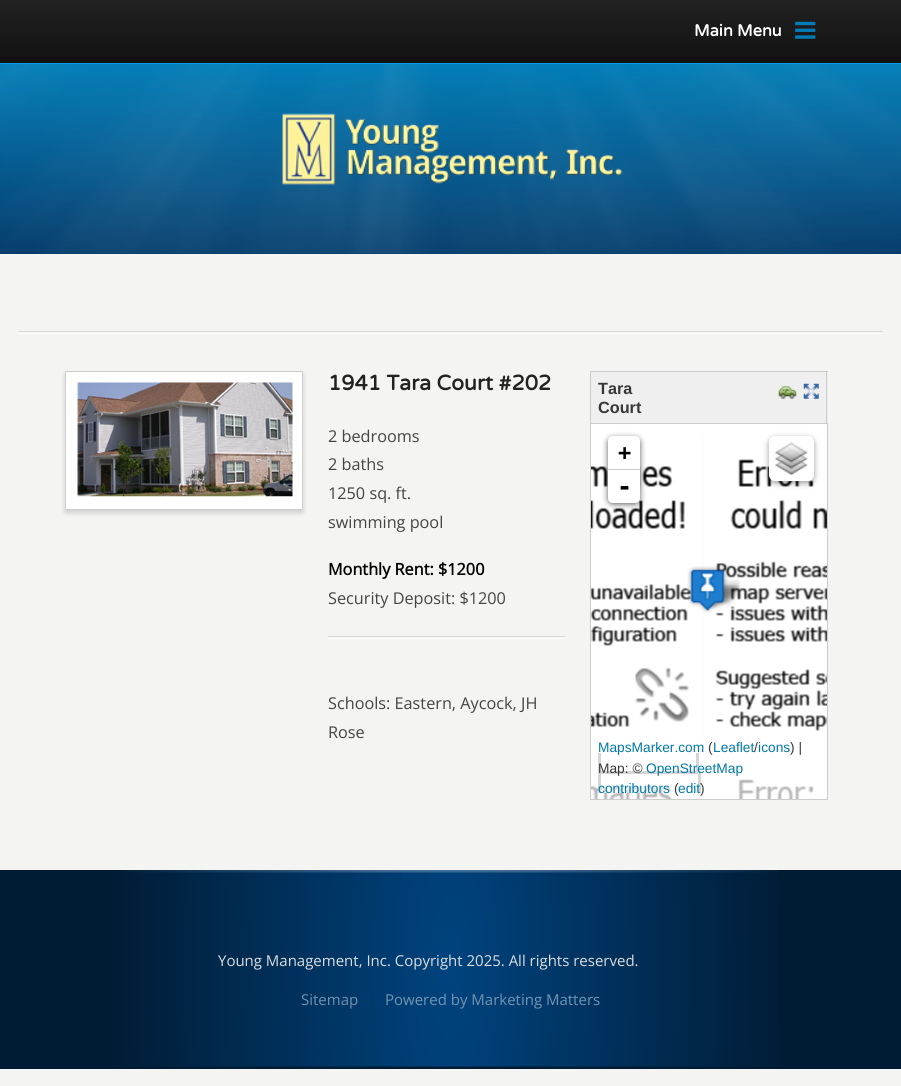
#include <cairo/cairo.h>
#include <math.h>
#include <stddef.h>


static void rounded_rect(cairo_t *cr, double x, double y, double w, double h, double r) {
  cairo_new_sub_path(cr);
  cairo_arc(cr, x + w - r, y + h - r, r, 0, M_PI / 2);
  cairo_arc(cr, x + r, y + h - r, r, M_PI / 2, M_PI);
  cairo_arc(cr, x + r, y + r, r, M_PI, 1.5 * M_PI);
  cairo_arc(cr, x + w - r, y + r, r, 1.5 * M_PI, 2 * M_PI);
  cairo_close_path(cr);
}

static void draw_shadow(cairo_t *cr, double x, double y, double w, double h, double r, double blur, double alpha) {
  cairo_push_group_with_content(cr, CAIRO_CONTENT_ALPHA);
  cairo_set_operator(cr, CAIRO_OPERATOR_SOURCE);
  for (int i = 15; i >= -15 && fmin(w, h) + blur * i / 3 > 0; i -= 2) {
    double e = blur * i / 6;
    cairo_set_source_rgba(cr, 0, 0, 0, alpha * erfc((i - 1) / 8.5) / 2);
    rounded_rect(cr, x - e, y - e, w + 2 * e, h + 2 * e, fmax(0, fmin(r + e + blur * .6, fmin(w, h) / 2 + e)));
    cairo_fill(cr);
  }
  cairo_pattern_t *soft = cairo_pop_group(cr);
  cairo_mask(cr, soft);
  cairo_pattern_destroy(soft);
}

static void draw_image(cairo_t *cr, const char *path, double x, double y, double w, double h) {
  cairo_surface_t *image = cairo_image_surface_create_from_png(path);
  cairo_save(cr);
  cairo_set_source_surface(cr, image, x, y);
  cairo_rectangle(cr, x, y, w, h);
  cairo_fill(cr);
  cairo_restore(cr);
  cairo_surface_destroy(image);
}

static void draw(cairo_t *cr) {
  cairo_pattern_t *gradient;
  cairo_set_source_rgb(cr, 244 / 255.0, 244 / 255.0, 242 / 255.0);
  cairo_paint(cr);
  gradient = cairo_pattern_create_linear(451, 0, 451, 63);
  cairo_pattern_add_color_stop_rgba(gradient, 0, 34 / 255.0, 34 / 255.0, 34 / 255.0, 1);
  cairo_pattern_add_color_stop_rgba(gradient, 1, 17 / 255.0, 17 / 255.0, 17 / 255.0, 1);
  cairo_set_source(cr, gradient);
  cairo_pattern_destroy(gradient);
  cairo_rectangle(cr, 0, 0, 901, 63);
  cairo_fill(cr);
  draw_image(cr, "images/1.png", 795, 21, 21, 18);
  gradient = cairo_pattern_create_linear(451, 64, 451, 254);
  cairo_pattern_add_color_stop_rgba(gradient, 0, 0, 124 / 255.0, 183 / 255.0, 1);
  cairo_pattern_add_color_stop_rgba(gradient, 1, 0, 56 / 255.0, 105 / 255.0, 1);
  cairo_set_source(cr, gradient);
  cairo_pattern_destroy(gradient);
  cairo_rectangle(cr, 0, 64, 901, 190);
  cairo_fill(cr);
  cairo_set_source_rgb(cr, 0, 162 / 255.0, 237 / 255.0);
  cairo_rectangle(cr, 0, 63, 901, 1);
  cairo_fill(cr);
  draw_image(cr, "images/2.png", 0, 64, 901, 190);
  draw_image(cr, "images/3.png", 282, 113, 341, 73);
  cairo_set_source_rgb(cr, 254 / 255.0, 254 / 255.0, 252 / 255.0);
  cairo_rectangle(cr, 19, 333, 864, 1);
  cairo_fill(cr);
  cairo_set_source_rgb(cr, 216 / 255.0, 216 / 255.0, 214 / 255.0);
  cairo_rectangle(cr, 19, 331, 864, 1);
  cairo_fill(cr);
  cairo_set_source_rgb(cr, 0, 0, 0);
  draw_shadow(cr, 65, 374, 238, 139, 0, 2.5, 0.15);
  cairo_set_source_rgb(cr, 1, 1, 1);
  cairo_rectangle(cr, 65.5, 371.5, 237, 138);
  cairo_fill_preserve(cr);
  cairo_set_source_rgb(cr, 207 / 255.0, 207 / 255.0, 206 / 255.0);
  cairo_set_line_width(cr, 1);
  cairo_stroke(cr);
  draw_image(cr, "images/4.png", 77, 382, 216, 115);
  cairo_set_source_rgb(cr, 254 / 255.0, 254 / 255.0, 252 / 255.0);
  cairo_rectangle(cr, 328, 638, 237, 1);
  cairo_fill(cr);
  cairo_set_source_rgb(cr, 216 / 255.0, 216 / 255.0, 214 / 255.0);
  cairo_rectangle(cr, 328, 636, 237, 1);
  cairo_fill(cr);
  cairo_set_source_rgb(cr, 239 / 255.0, 239 / 255.0, 239 / 255.0);
  cairo_rectangle(cr, 591, 372, 237, 51);
  cairo_fill(cr);
  cairo_set_source_rgb(cr, 204 / 255.0, 204 / 255.0, 204 / 255.0);
  cairo_rectangle(cr, 590, 371, 238, 1);
  cairo_fill(cr);
  cairo_rectangle(cr, 826, 371, 1, 52);
  cairo_fill(cr);
  cairo_rectangle(cr, 590, 371, 1, 52);
  cairo_fill(cr);
  draw_image(cr, "images/5.png", 778, 386, 19, 13);
  draw_image(cr, "images/6.png", 803, 383, 16, 16);
  cairo_set_source_rgb(cr, 246 / 255.0, 246 / 255.0, 246 / 255.0);
  cairo_rectangle(cr, 702, 433, 1, 366);
  cairo_fill(cr);
  cairo_rectangle(cr, 590.5, 423.5, 237, 376);
  cairo_set_source_rgb(cr, 204 / 255.0, 204 / 255.0, 204 / 255.0);
  cairo_stroke(cr);
  cairo_set_source_rgb(cr, 1, 1, 1);
  cairo_rectangle(cr, 591, 424, 236, 9);
  cairo_fill(cr);
  draw_image(cr, "images/7.png", 591, 433, 112, 320);
  draw_image(cr, "images/8.png", 703, 433, 124, 320);
  draw_image(cr, "images/9.png", 591, 753, 112, 46);
  draw_image(cr, "images/10.png", 703, 753, 124, 46);
  draw_image(cr, "images/12.png", 702, 579, 39, 30);
  draw_image(cr, "images/11.png", 687, 566, 41, 47);
  cairo_set_source_rgb(cr, 0, 0, 0);
  draw_shadow(cr, 608, 438, 32, 66, 5, 3, 0.65);
  cairo_set_source_rgb(cr, 1, 1, 1);
  cairo_new_path(cr);
  cairo_move_to(cr, 613, 436);
  cairo_line_to(cr, 635, 436);
  cairo_curve_to(cr, 638, 436, 640, 438, 640, 441);
  cairo_line_to(cr, 640, 470);
  cairo_line_to(cr, 608, 470);
  cairo_line_to(cr, 608, 441);
  cairo_curve_to(cr, 608, 438, 610, 436, 613, 436);
  cairo_close_path(cr);
  cairo_fill(cr);
  cairo_set_source_rgb(cr, 204 / 255.0, 204 / 255.0, 204 / 255.0);
  cairo_rectangle(cr, 608, 469, 32, 1);
  cairo_fill(cr);
  cairo_set_source_rgb(cr, 1, 1, 1);
  cairo_new_path(cr);
  cairo_move_to(cr, 608, 470);
  cairo_line_to(cr, 640, 470);
  cairo_line_to(cr, 640, 498);
  cairo_curve_to(cr, 640, 501, 638, 503, 635, 503);
  cairo_line_to(cr, 613, 503);
  cairo_curve_to(cr, 610, 503, 608, 501, 608, 498);
  cairo_close_path(cr);
  cairo_fill(cr);
  cairo_set_source_rgb(cr, 0, 0, 0);
  draw_shadow(cr, 769, 438, 45, 45, 6, 3, 0.4);
  cairo_set_source_rgb(cr, 1, 1, 1);
  rounded_rect(cr, 769, 436, 45, 45, 6);
  cairo_fill(cr);
  draw_image(cr, "images/13.png", 775, 442, 33, 33);
  cairo_set_source_rgb(cr, 119 / 255.0, 119 / 255.0, 119 / 255.0);
  cairo_rectangle(cr, 696, 753, 3, 21);
  cairo_fill(cr);
  cairo_rectangle(cr, 598, 753, 3, 21);
  cairo_fill(cr);
  cairo_set_source_rgba(cr, 1, 1, 1, 0.5);
  cairo_rectangle(cr, 601, 786, 71, 7);
  cairo_fill(cr);
  cairo_set_source_rgb(cr, 119 / 255.0, 119 / 255.0, 119 / 255.0);
  cairo_rectangle(cr, 598, 771, 102, 3);
  cairo_fill(cr);
  cairo_rectangle(cr, 698, 771, 3, 22);
  cairo_fill(cr);
  cairo_rectangle(cr, 598, 771, 3, 22);
  cairo_fill(cr);
  cairo_set_source_rgba(cr, 1, 1, 1, 0.7);
  cairo_rectangle(cr, 591, 738, 224, 61);
  cairo_fill(cr);
  cairo_set_source_rgb(cr, 0, 28 / 255.0, 52 / 255.0);
  cairo_rectangle(cr, 0, 870, 901, 199);
  cairo_fill(cr);
  draw_image(cr, "images/14.png", 120, 870, 658, 197);
  cairo_select_font_face(cr, "Varela Round", CAIRO_FONT_SLANT_NORMAL, CAIRO_FONT_WEIGHT_BOLD);
  cairo_set_font_size(cr, 16.25);
  cairo_set_source_rgb(cr, 1, 1, 1);
  cairo_move_to(cr, 694, 36);
  cairo_show_text(cr, "Main Menu");
  cairo_set_font_size(cr, 21.1);
  cairo_set_source_rgb(cr, 34 / 255.0, 34 / 255.0, 34 / 255.0);
  cairo_move_to(cr, 328, 390);
  cairo_show_text(cr, "1941 Tara Court #202");
  cairo_select_font_face(cr, "Open Sans", CAIRO_FONT_SLANT_NORMAL, CAIRO_FONT_WEIGHT_NORMAL);
  cairo_set_font_size(cr, 16.25);
  cairo_set_source_rgb(cr, 68 / 255.0, 68 / 255.0, 68 / 255.0);
  cairo_move_to(cr, 328, 442);
  cairo_show_text(cr, "2 bedrooms");
  cairo_move_to(cr, 328, 470);
  cairo_show_text(cr, "2 baths");
  cairo_move_to(cr, 328, 499);
  cairo_show_text(cr, "1250 sq. ft.");
  cairo_move_to(cr, 328, 528);
  cairo_show_text(cr, "swimming pool");
  cairo_select_font_face(cr, "Open Sans", CAIRO_FONT_SLANT_NORMAL, CAIRO_FONT_WEIGHT_BOLD);
  cairo_set_source_rgb(cr, 0, 0, 0);
  cairo_move_to(cr, 328, 575);
  cairo_show_text(cr, "Monthly Rent: $1200");
  cairo_select_font_face(cr, "Open Sans", CAIRO_FONT_SLANT_NORMAL, CAIRO_FONT_WEIGHT_NORMAL);
  cairo_set_source_rgb(cr, 68 / 255.0, 68 / 255.0, 68 / 255.0);
  cairo_move_to(cr, 328, 604);
  cairo_show_text(cr, "Security Deposit: $1200");
  cairo_move_to(cr, 328, 709);
  cairo_show_text(cr, "Schools: Eastern, Aycock, JH");
  cairo_move_to(cr, 328, 738);
  cairo_show_text(cr, "Rose");
  cairo_select_font_face(cr, "Liberation Sans", CAIRO_FONT_SLANT_NORMAL, CAIRO_FONT_WEIGHT_BOLD);
  cairo_set_source_rgb(cr, 55 / 255.0, 55 / 255.0, 55 / 255.0);
  cairo_move_to(cr, 598, 394);
  cairo_show_text(cr, "Tara");
  cairo_move_to(cr, 598, 413);
  cairo_show_text(cr, "Court");
  cairo_select_font_face(cr, "DejaVu Sans Mono", CAIRO_FONT_SLANT_NORMAL, CAIRO_FONT_WEIGHT_BOLD);
  cairo_set_font_size(cr, 22);
  cairo_set_source_rgb(cr, 0, 0, 0);
  cairo_move_to(cr, 618, 460);
  cairo_show_text(cr, "+");
  cairo_set_font_size(cr, 25);
  cairo_move_to(cr, 617, 495);
  cairo_show_text(cr, "-");
  cairo_select_font_face(cr, "Liberation Sans", CAIRO_FONT_SLANT_NORMAL, CAIRO_FONT_WEIGHT_NORMAL);
  cairo_set_font_size(cr, 13.75);
  cairo_set_source_rgb(cr, 0, 120 / 255.0, 168 / 255.0);
  cairo_move_to(cr, 598, 752);
  cairo_show_text(cr, "MapsMarker.com");
  cairo_set_source_rgb(cr, 55 / 255.0, 55 / 255.0, 55 / 255.0);
  cairo_move_to(cr, 708, 752);
  cairo_show_text(cr, "(");
  cairo_set_source_rgb(cr, 0, 120 / 255.0, 168 / 255.0);
  cairo_move_to(cr, 713, 752);
  cairo_show_text(cr, "Leaflet icons");
  cairo_set_source_rgb(cr, 55 / 255.0, 55 / 255.0, 55 / 255.0);
  cairo_move_to(cr, 754, 752);
  cairo_show_text(cr, "/");
  cairo_move_to(cr, 790, 752);
  cairo_show_text(cr, ") |");
  cairo_move_to(cr, 598, 773);
  cairo_show_text(cr, "Map: ©");
  cairo_set_source_rgb(cr, 0, 120 / 255.0, 168 / 255.0);
  cairo_move_to(cr, 646, 773);
  cairo_show_text(cr, "OpenStreetMap");
  cairo_move_to(cr, 598, 793);
  cairo_show_text(cr, "contributors");
  cairo_set_source_rgb(cr, 55 / 255.0, 55 / 255.0, 55 / 255.0);
  cairo_move_to(cr, 674, 793);
  cairo_show_text(cr, "(");
  cairo_set_source_rgb(cr, 0, 120 / 255.0, 168 / 255.0);
  cairo_move_to(cr, 678, 793);
  cairo_show_text(cr, "edit");
  cairo_set_source_rgb(cr, 55 / 255.0, 55 / 255.0, 55 / 255.0);
  cairo_move_to(cr, 700, 793);
  cairo_show_text(cr, ")");
  cairo_select_font_face(cr, "Open Sans", CAIRO_FONT_SLANT_NORMAL, CAIRO_FONT_WEIGHT_NORMAL);
  cairo_set_font_size(cr, 15);
  cairo_set_source_rgb(cr, 221 / 255.0, 221 / 255.0, 221 / 255.0);
  cairo_move_to(cr, 218, 966);
  cairo_show_text(cr, "Young Management, Inc. Copyright 2025. All rights reserved.");
  cairo_set_source_rgb(cr, 115 / 255.0, 144 / 255.0, 170 / 255.0);
  cairo_move_to(cr, 301, 1005);
  cairo_show_text(cr, "Sitemap");
  cairo_set_source_rgb(cr, 115 / 255.0, 148 / 255.0, 177 / 255.0);
  cairo_move_to(cr, 385, 1005);
  cairo_show_text(cr, "Powered by Marketing Matters");
}

int main(void) {
  cairo_surface_t *surface = cairo_image_surface_create(CAIRO_FORMAT_RGB24, 901, 1086);
  cairo_t *cr = cairo_create(surface);
  cairo_font_options_t *options = cairo_font_options_create();
  cairo_font_options_set_hint_metrics(options, CAIRO_HINT_METRICS_OFF);
  cairo_font_options_set_hint_style(options, CAIRO_HINT_STYLE_NONE);
  cairo_set_font_options(cr, options);
  cairo_set_miter_limit(cr, 4);
  draw(cr);
  cairo_surface_write_to_png(surface, "out.png");
  cairo_font_options_destroy(options);
  cairo_destroy(cr);
  cairo_surface_destroy(surface);
  return 0;
}
